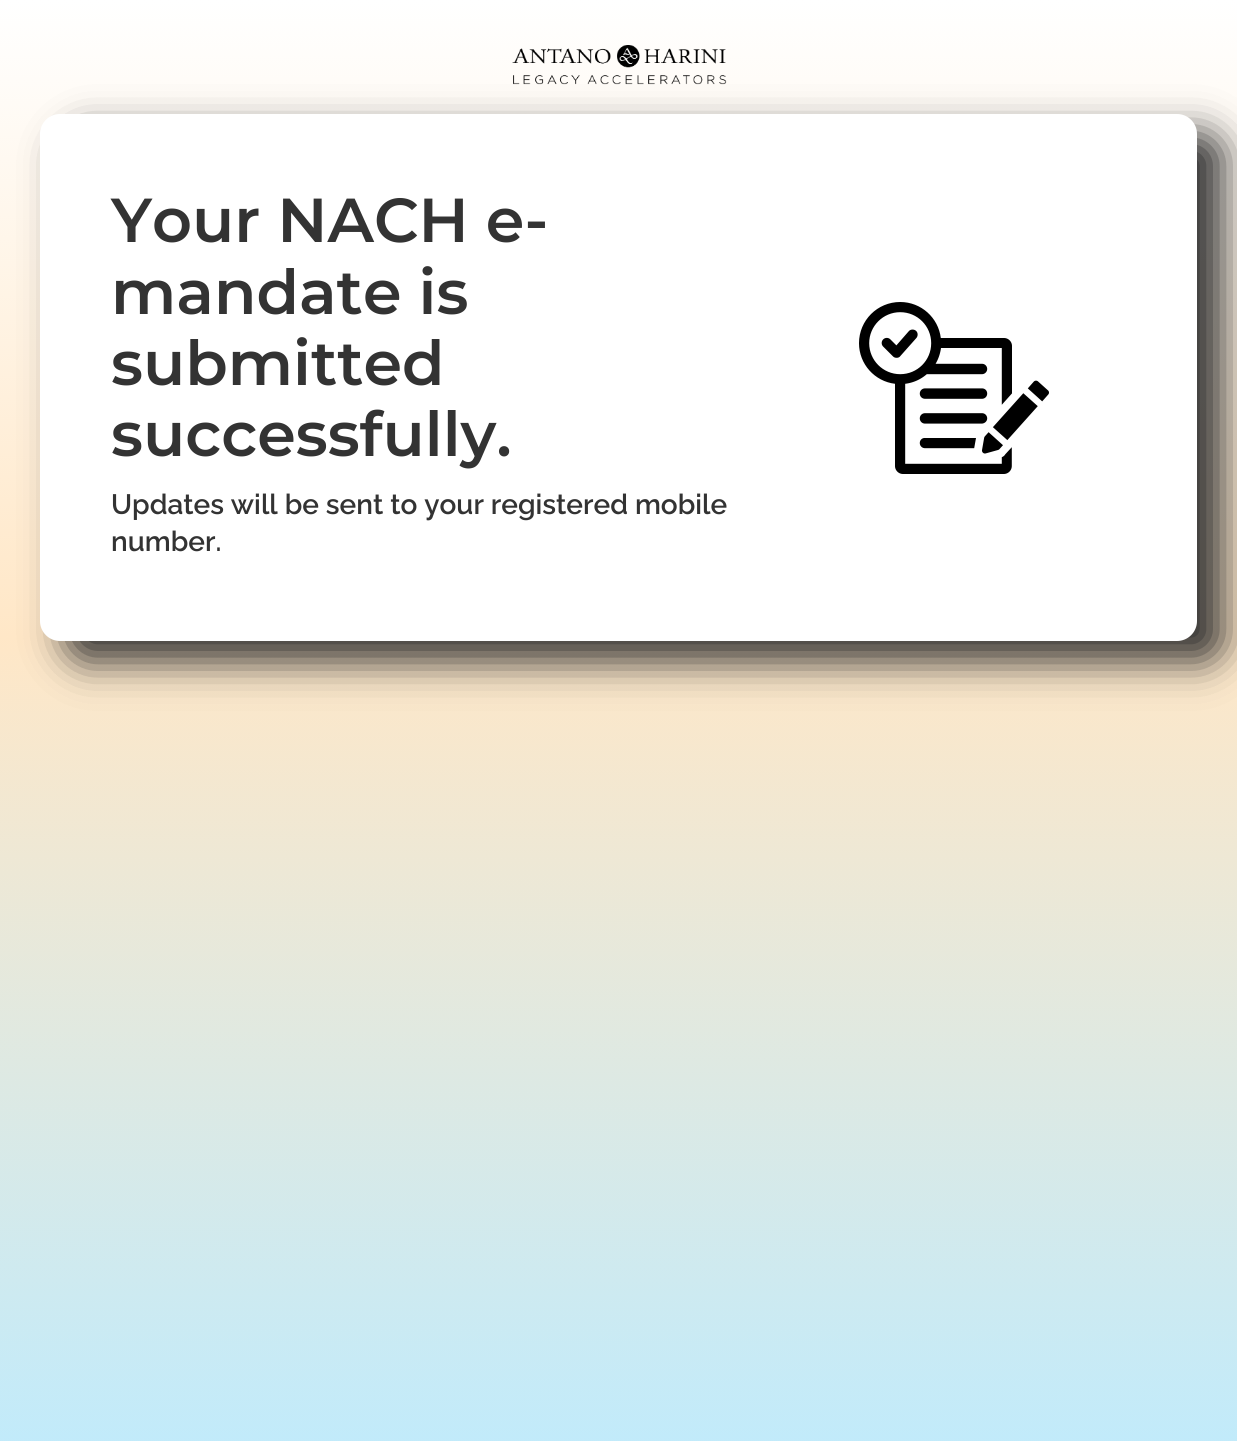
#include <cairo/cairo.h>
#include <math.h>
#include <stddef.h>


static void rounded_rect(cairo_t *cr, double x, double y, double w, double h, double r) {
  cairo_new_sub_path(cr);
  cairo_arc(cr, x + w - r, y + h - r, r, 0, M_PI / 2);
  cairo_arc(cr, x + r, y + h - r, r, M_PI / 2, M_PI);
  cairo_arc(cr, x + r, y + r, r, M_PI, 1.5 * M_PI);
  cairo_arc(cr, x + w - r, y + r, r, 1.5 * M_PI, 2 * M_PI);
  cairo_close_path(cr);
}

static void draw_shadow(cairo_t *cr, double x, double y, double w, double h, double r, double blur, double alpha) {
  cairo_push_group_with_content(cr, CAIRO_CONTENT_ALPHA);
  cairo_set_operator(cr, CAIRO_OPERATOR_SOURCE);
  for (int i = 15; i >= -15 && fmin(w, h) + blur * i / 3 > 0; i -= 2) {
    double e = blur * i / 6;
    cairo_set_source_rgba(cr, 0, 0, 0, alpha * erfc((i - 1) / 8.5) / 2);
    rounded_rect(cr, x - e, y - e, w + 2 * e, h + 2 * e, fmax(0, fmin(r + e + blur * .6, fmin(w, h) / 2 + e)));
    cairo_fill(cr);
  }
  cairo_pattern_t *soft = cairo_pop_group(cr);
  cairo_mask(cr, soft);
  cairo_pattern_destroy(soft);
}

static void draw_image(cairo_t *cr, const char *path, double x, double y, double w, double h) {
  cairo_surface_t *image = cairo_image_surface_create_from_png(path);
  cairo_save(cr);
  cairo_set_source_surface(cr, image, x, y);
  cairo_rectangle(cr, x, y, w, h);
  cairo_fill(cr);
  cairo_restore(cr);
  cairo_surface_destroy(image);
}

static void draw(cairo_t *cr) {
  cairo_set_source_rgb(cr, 1, 1, 1);
  cairo_paint(cr);
  draw_image(cr, "images/1.png", 0, 0, 1237, 1441);
  draw_image(cr, "images/2.png", 512, 45, 215, 40);
  cairo_set_source_rgb(cr, 51 / 255.0, 51 / 255.0, 51 / 255.0);
  draw_shadow(cr, 66, 134, 1157, 527, 20, 20, 1);
  cairo_set_source_rgb(cr, 1, 1, 1);
  rounded_rect(cr, 40, 114, 1157, 527, 20);
  cairo_fill(cr);
  draw_image(cr, "images/3.png", 859, 302, 190, 172);
  cairo_select_font_face(cr, "Montserrat SemiBold", CAIRO_FONT_SLANT_NORMAL, CAIRO_FONT_WEIGHT_NORMAL);
  cairo_set_font_size(cr, 62);
  cairo_set_source_rgb(cr, 51 / 255.0, 51 / 255.0, 51 / 255.0);
  cairo_move_to(cr, 111, 242);
  cairo_show_text(cr, "Your NACH e-");
  cairo_move_to(cr, 111, 314);
  cairo_show_text(cr, "mandate is");
  cairo_move_to(cr, 111, 385);
  cairo_show_text(cr, "submitted");
  cairo_move_to(cr, 111, 456);
  cairo_show_text(cr, "successfully.");
  cairo_select_font_face(cr, "Raleway SemiBold", CAIRO_FONT_SLANT_NORMAL, CAIRO_FONT_WEIGHT_NORMAL);
  cairo_set_font_size(cr, 28);
  cairo_move_to(cr, 111, 514);
  cairo_show_text(cr, "Updates will be sent to your registered mobile");
  cairo_move_to(cr, 111, 551);
  cairo_show_text(cr, "number.");
}

int main(void) {
  cairo_surface_t *surface = cairo_image_surface_create(CAIRO_FORMAT_RGB24, 1237, 1441);
  cairo_t *cr = cairo_create(surface);
  cairo_font_options_t *options = cairo_font_options_create();
  cairo_font_options_set_hint_metrics(options, CAIRO_HINT_METRICS_OFF);
  cairo_font_options_set_hint_style(options, CAIRO_HINT_STYLE_NONE);
  cairo_set_font_options(cr, options);
  cairo_set_miter_limit(cr, 4);
  draw(cr);
  cairo_surface_write_to_png(surface, "out.png");
  cairo_font_options_destroy(options);
  cairo_destroy(cr);
  cairo_surface_destroy(surface);
  return 0;
}
